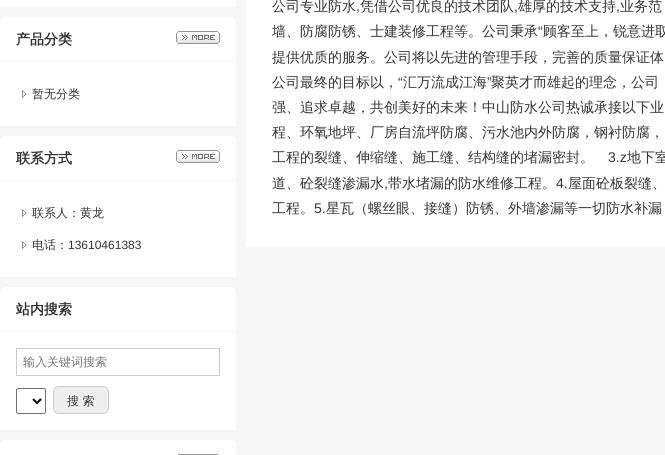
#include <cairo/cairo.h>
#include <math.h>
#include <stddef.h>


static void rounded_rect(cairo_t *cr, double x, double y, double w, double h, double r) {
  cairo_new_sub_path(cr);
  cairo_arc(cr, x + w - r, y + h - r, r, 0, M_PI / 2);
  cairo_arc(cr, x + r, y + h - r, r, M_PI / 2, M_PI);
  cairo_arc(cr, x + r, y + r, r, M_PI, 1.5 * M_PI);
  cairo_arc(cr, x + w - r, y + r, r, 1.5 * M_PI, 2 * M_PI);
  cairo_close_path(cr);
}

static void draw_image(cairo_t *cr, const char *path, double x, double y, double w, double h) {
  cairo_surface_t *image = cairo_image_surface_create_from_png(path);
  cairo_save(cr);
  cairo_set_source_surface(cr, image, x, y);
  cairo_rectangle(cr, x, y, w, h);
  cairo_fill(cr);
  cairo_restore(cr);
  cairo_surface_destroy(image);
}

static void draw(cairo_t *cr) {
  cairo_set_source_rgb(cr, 246 / 255.0, 246 / 255.0, 246 / 255.0);
  cairo_paint(cr);
  cairo_set_source_rgb(cr, 1, 1, 1);
  cairo_rectangle(cr, 0, 0, 236, 7);
  cairo_fill(cr);
  cairo_new_path(cr);
  cairo_move_to(cr, 6, 17);
  cairo_line_to(cr, 230, 17);
  cairo_curve_to(cr, 233.5, 17, 236, 19.5, 236, 23);
  cairo_line_to(cr, 236, 62);
  cairo_line_to(cr, 0, 62);
  cairo_line_to(cr, 0, 23);
  cairo_curve_to(cr, 0, 19.5, 2.5, 17, 6, 17);
  cairo_close_path(cr);
  cairo_fill(cr);
  cairo_set_source_rgb(cr, 246 / 255.0, 246 / 255.0, 246 / 255.0);
  cairo_rectangle(cr, 0, 61, 236, 1);
  cairo_fill(cr);
  draw_image(cr, "images/1.png", 176, 31, 44, 13);
  cairo_set_source_rgb(cr, 1, 1, 1);
  cairo_rectangle(cr, 0, 62, 236, 64);
  cairo_fill(cr);
  draw_image(cr, "images/2.png", 22, 90, 4, 8);
  cairo_new_path(cr);
  cairo_move_to(cr, 6, 136);
  cairo_line_to(cr, 230, 136);
  cairo_curve_to(cr, 233.5, 136, 236, 138.5, 236, 142);
  cairo_line_to(cr, 236, 181);
  cairo_line_to(cr, 0, 181);
  cairo_line_to(cr, 0, 142);
  cairo_curve_to(cr, 0, 138.5, 2.5, 136, 6, 136);
  cairo_close_path(cr);
  cairo_fill(cr);
  cairo_set_source_rgb(cr, 246 / 255.0, 246 / 255.0, 246 / 255.0);
  cairo_rectangle(cr, 0, 180, 236, 1);
  cairo_fill(cr);
  draw_image(cr, "images/1.png", 176, 150, 44, 13);
  cairo_set_source_rgb(cr, 1, 1, 1);
  cairo_rectangle(cr, 0, 181, 236, 96);
  cairo_fill(cr);
  draw_image(cr, "images/2.png", 22, 209, 4, 8);
  draw_image(cr, "images/2.png", 22, 241, 4, 8);
  cairo_new_path(cr);
  cairo_move_to(cr, 6, 287);
  cairo_line_to(cr, 230, 287);
  cairo_curve_to(cr, 233.5, 287, 236, 289.5, 236, 293);
  cairo_line_to(cr, 236, 332);
  cairo_line_to(cr, 0, 332);
  cairo_line_to(cr, 0, 293);
  cairo_curve_to(cr, 0, 289.5, 2.5, 287, 6, 287);
  cairo_close_path(cr);
  cairo_fill(cr);
  cairo_set_source_rgb(cr, 246 / 255.0, 246 / 255.0, 246 / 255.0);
  cairo_rectangle(cr, 0, 331, 236, 1);
  cairo_fill(cr);
  cairo_set_source_rgb(cr, 1, 1, 1);
  cairo_rectangle(cr, 0, 332, 236, 98);
  cairo_fill(cr);
  cairo_rectangle(cr, 16.5, 348.5, 203, 27);
  cairo_set_source_rgb(cr, 204 / 255.0, 204 / 255.0, 204 / 255.0);
  cairo_set_line_width(cr, 1);
  cairo_stroke(cr);
  rounded_rect(cr, 16.5, 388.5, 29, 25, 1.5);
  cairo_set_source_rgb(cr, 118 / 255.0, 118 / 255.0, 118 / 255.0);
  cairo_stroke(cr);
  cairo_new_path(cr);
  cairo_move_to(cr, 33, 399);
  cairo_line_to(cr, 37, 403);
  cairo_line_to(cr, 41, 399);
  cairo_set_source_rgb(cr, 0, 0, 0);
  cairo_set_line_width(cr, 2);
  cairo_stroke(cr);
  cairo_set_source_rgb(cr, 238 / 255.0, 238 / 255.0, 238 / 255.0);
  rounded_rect(cr, 53.5, 386.5, 55, 27, 5.5);
  cairo_fill_preserve(cr);
  cairo_set_source_rgb(cr, 204 / 255.0, 204 / 255.0, 204 / 255.0);
  cairo_set_line_width(cr, 1);
  cairo_stroke(cr);
  cairo_set_source_rgb(cr, 1, 1, 1);
  cairo_new_path(cr);
  cairo_move_to(cr, 6, 440);
  cairo_line_to(cr, 230, 440);
  cairo_curve_to(cr, 233.5, 440, 236, 442.5, 236, 446);
  cairo_line_to(cr, 236, 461);
  cairo_line_to(cr, 0, 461);
  cairo_line_to(cr, 0, 446);
  cairo_curve_to(cr, 0, 442.5, 2.5, 440, 6, 440);
  cairo_close_path(cr);
  cairo_fill(cr);
  cairo_set_source_rgb(cr, 149 / 255.0, 149 / 255.0, 149 / 255.0);
  cairo_rectangle(cr, 178, 454, 40, 1);
  cairo_fill(cr);
  cairo_set_source_rgb(cr, 1, 1, 1);
  cairo_rectangle(cr, 246, 0, 419, 247);
  cairo_fill(cr);
  cairo_select_font_face(cr, "WenQuanYi Zen Hei", CAIRO_FONT_SLANT_NORMAL, CAIRO_FONT_WEIGHT_BOLD);
  cairo_set_font_size(cr, 14);
  cairo_set_source_rgb(cr, 51 / 255.0, 51 / 255.0, 51 / 255.0);
  cairo_move_to(cr, 16, 44);
  cairo_show_text(cr, "产品分类");
  cairo_select_font_face(cr, "WenQuanYi Zen Hei Medium", CAIRO_FONT_SLANT_NORMAL, CAIRO_FONT_WEIGHT_NORMAL);
  cairo_set_font_size(cr, 12);
  cairo_move_to(cr, 32, 98);
  cairo_show_text(cr, "暂无分类");
  cairo_select_font_face(cr, "WenQuanYi Zen Hei", CAIRO_FONT_SLANT_NORMAL, CAIRO_FONT_WEIGHT_BOLD);
  cairo_set_font_size(cr, 14);
  cairo_move_to(cr, 16, 163);
  cairo_show_text(cr, "联系方式");
  cairo_select_font_face(cr, "WenQuanYi Zen Hei Medium", CAIRO_FONT_SLANT_NORMAL, CAIRO_FONT_WEIGHT_NORMAL);
  cairo_set_font_size(cr, 12);
  cairo_move_to(cr, 32, 217);
  cairo_show_text(cr, "联系人：黄龙");
  cairo_move_to(cr, 32, 249);
  cairo_show_text(cr, "电话：");
  cairo_select_font_face(cr, "Liberation Sans", CAIRO_FONT_SLANT_NORMAL, CAIRO_FONT_WEIGHT_NORMAL);
  cairo_move_to(cr, 68, 249);
  cairo_show_text(cr, "13610461383");
  cairo_select_font_face(cr, "WenQuanYi Zen Hei", CAIRO_FONT_SLANT_NORMAL, CAIRO_FONT_WEIGHT_BOLD);
  cairo_set_font_size(cr, 14);
  cairo_move_to(cr, 16, 314);
  cairo_show_text(cr, "站内搜索");
  cairo_select_font_face(cr, "WenQuanYi Zen Hei Medium", CAIRO_FONT_SLANT_NORMAL, CAIRO_FONT_WEIGHT_NORMAL);
  cairo_set_font_size(cr, 12);
  cairo_set_source_rgb(cr, 117 / 255.0, 117 / 255.0, 117 / 255.0);
  cairo_move_to(cr, 23, 366);
  cairo_show_text(cr, "输入关键词搜索");
  cairo_set_source_rgb(cr, 51 / 255.0, 51 / 255.0, 51 / 255.0);
  cairo_move_to(cr, 67, 405);
  cairo_show_text(cr, "搜 索");
  cairo_set_font_size(cr, 14);
  cairo_move_to(cr, 272, 11);
  cairo_show_text(cr, "公司专业防水");
  cairo_select_font_face(cr, "Liberation Sans", CAIRO_FONT_SLANT_NORMAL, CAIRO_FONT_WEIGHT_NORMAL);
  cairo_move_to(cr, 356, 11);
  cairo_show_text(cr, ",");
  cairo_select_font_face(cr, "WenQuanYi Zen Hei Medium", CAIRO_FONT_SLANT_NORMAL, CAIRO_FONT_WEIGHT_NORMAL);
  cairo_move_to(cr, 360, 11);
  cairo_show_text(cr, "凭借公司优良的技术团队");
  cairo_select_font_face(cr, "Liberation Sans", CAIRO_FONT_SLANT_NORMAL, CAIRO_FONT_WEIGHT_NORMAL);
  cairo_move_to(cr, 514, 11);
  cairo_show_text(cr, ",");
  cairo_select_font_face(cr, "WenQuanYi Zen Hei Medium", CAIRO_FONT_SLANT_NORMAL, CAIRO_FONT_WEIGHT_NORMAL);
  cairo_move_to(cr, 518, 11);
  cairo_show_text(cr, "雄厚的技术支持");
  cairo_select_font_face(cr, "Liberation Sans", CAIRO_FONT_SLANT_NORMAL, CAIRO_FONT_WEIGHT_NORMAL);
  cairo_move_to(cr, 616, 11);
  cairo_show_text(cr, ",");
  cairo_select_font_face(cr, "WenQuanYi Zen Hei Medium", CAIRO_FONT_SLANT_NORMAL, CAIRO_FONT_WEIGHT_NORMAL);
  cairo_move_to(cr, 620, 11);
  cairo_show_text(cr, "业务范");
  cairo_move_to(cr, 272, 36);
  cairo_show_text(cr, "墙、防腐防锈、士建装修工程等。公司秉承");
  cairo_select_font_face(cr, "Liberation Sans", CAIRO_FONT_SLANT_NORMAL, CAIRO_FONT_WEIGHT_NORMAL);
  cairo_move_to(cr, 538, 36);
  cairo_show_text(cr, "“");
  cairo_select_font_face(cr, "WenQuanYi Zen Hei Medium", CAIRO_FONT_SLANT_NORMAL, CAIRO_FONT_WEIGHT_NORMAL);
  cairo_move_to(cr, 543, 36);
  cairo_show_text(cr, "顾客至上，锐意进取");
  cairo_move_to(cr, 272, 62);
  cairo_show_text(cr, "提供优质的服务。公司将以先进的管理手段，完善的质量保证体");
  cairo_move_to(cr, 272, 87);
  cairo_show_text(cr, "公司最终的目标以，");
  cairo_select_font_face(cr, "Liberation Sans", CAIRO_FONT_SLANT_NORMAL, CAIRO_FONT_WEIGHT_NORMAL);
  cairo_move_to(cr, 398, 87);
  cairo_show_text(cr, "“");
  cairo_select_font_face(cr, "WenQuanYi Zen Hei Medium", CAIRO_FONT_SLANT_NORMAL, CAIRO_FONT_WEIGHT_NORMAL);
  cairo_move_to(cr, 403, 87);
  cairo_show_text(cr, "汇万流成江海");
  cairo_select_font_face(cr, "Liberation Sans", CAIRO_FONT_SLANT_NORMAL, CAIRO_FONT_WEIGHT_NORMAL);
  cairo_move_to(cr, 487, 87);
  cairo_show_text(cr, "”");
  cairo_select_font_face(cr, "WenQuanYi Zen Hei Medium", CAIRO_FONT_SLANT_NORMAL, CAIRO_FONT_WEIGHT_NORMAL);
  cairo_move_to(cr, 491, 87);
  cairo_show_text(cr, "聚英才而雄起的理念，公司");
  cairo_move_to(cr, 272, 112);
  cairo_show_text(cr, "强、追求卓越，共创美好的未来！中山防水公司热诚承接以下业");
  cairo_move_to(cr, 272, 137);
  cairo_show_text(cr, "程、环氧地坪、厂房自流坪防腐、污水池内外防腐，钢衬防腐，");
  cairo_move_to(cr, 272, 162);
  cairo_show_text(cr, "工程的裂缝、伸缩缝、施工缝、结构缝的堵漏密封。");
  cairo_select_font_face(cr, "Liberation Sans", CAIRO_FONT_SLANT_NORMAL, CAIRO_FONT_WEIGHT_NORMAL);
  cairo_move_to(cr, 608, 162);
  cairo_show_text(cr, "3.z");
  cairo_select_font_face(cr, "WenQuanYi Zen Hei Medium", CAIRO_FONT_SLANT_NORMAL, CAIRO_FONT_WEIGHT_NORMAL);
  cairo_move_to(cr, 627, 162);
  cairo_show_text(cr, "地下室");
  cairo_move_to(cr, 272, 188);
  cairo_show_text(cr, "道、砼裂缝渗漏水");
  cairo_select_font_face(cr, "Liberation Sans", CAIRO_FONT_SLANT_NORMAL, CAIRO_FONT_WEIGHT_NORMAL);
  cairo_move_to(cr, 384, 188);
  cairo_show_text(cr, ",");
  cairo_select_font_face(cr, "WenQuanYi Zen Hei Medium", CAIRO_FONT_SLANT_NORMAL, CAIRO_FONT_WEIGHT_NORMAL);
  cairo_move_to(cr, 388, 188);
  cairo_show_text(cr, "带水堵漏的防水维修工程。");
  cairo_select_font_face(cr, "Liberation Sans", CAIRO_FONT_SLANT_NORMAL, CAIRO_FONT_WEIGHT_NORMAL);
  cairo_move_to(cr, 556, 188);
  cairo_show_text(cr, "4.");
  cairo_select_font_face(cr, "WenQuanYi Zen Hei Medium", CAIRO_FONT_SLANT_NORMAL, CAIRO_FONT_WEIGHT_NORMAL);
  cairo_move_to(cr, 568, 188);
  cairo_show_text(cr, "屋面砼板裂缝、");
  cairo_move_to(cr, 272, 213);
  cairo_show_text(cr, "工程。");
  cairo_select_font_face(cr, "Liberation Sans", CAIRO_FONT_SLANT_NORMAL, CAIRO_FONT_WEIGHT_NORMAL);
  cairo_move_to(cr, 314, 213);
  cairo_show_text(cr, "5.");
  cairo_select_font_face(cr, "WenQuanYi Zen Hei Medium", CAIRO_FONT_SLANT_NORMAL, CAIRO_FONT_WEIGHT_NORMAL);
  cairo_move_to(cr, 326, 213);
  cairo_show_text(cr, "星瓦（螺丝眼、接缝）防锈、外墙渗漏等一切防水补漏");
}

int main(void) {
  cairo_surface_t *surface = cairo_image_surface_create(CAIRO_FORMAT_RGB24, 665, 455);
  cairo_t *cr = cairo_create(surface);
  cairo_font_options_t *options = cairo_font_options_create();
  cairo_font_options_set_hint_metrics(options, CAIRO_HINT_METRICS_OFF);
  cairo_font_options_set_hint_style(options, CAIRO_HINT_STYLE_NONE);
  cairo_set_font_options(cr, options);
  cairo_set_miter_limit(cr, 4);
  draw(cr);
  cairo_surface_write_to_png(surface, "out.png");
  cairo_font_options_destroy(options);
  cairo_destroy(cr);
  cairo_surface_destroy(surface);
  return 0;
}
